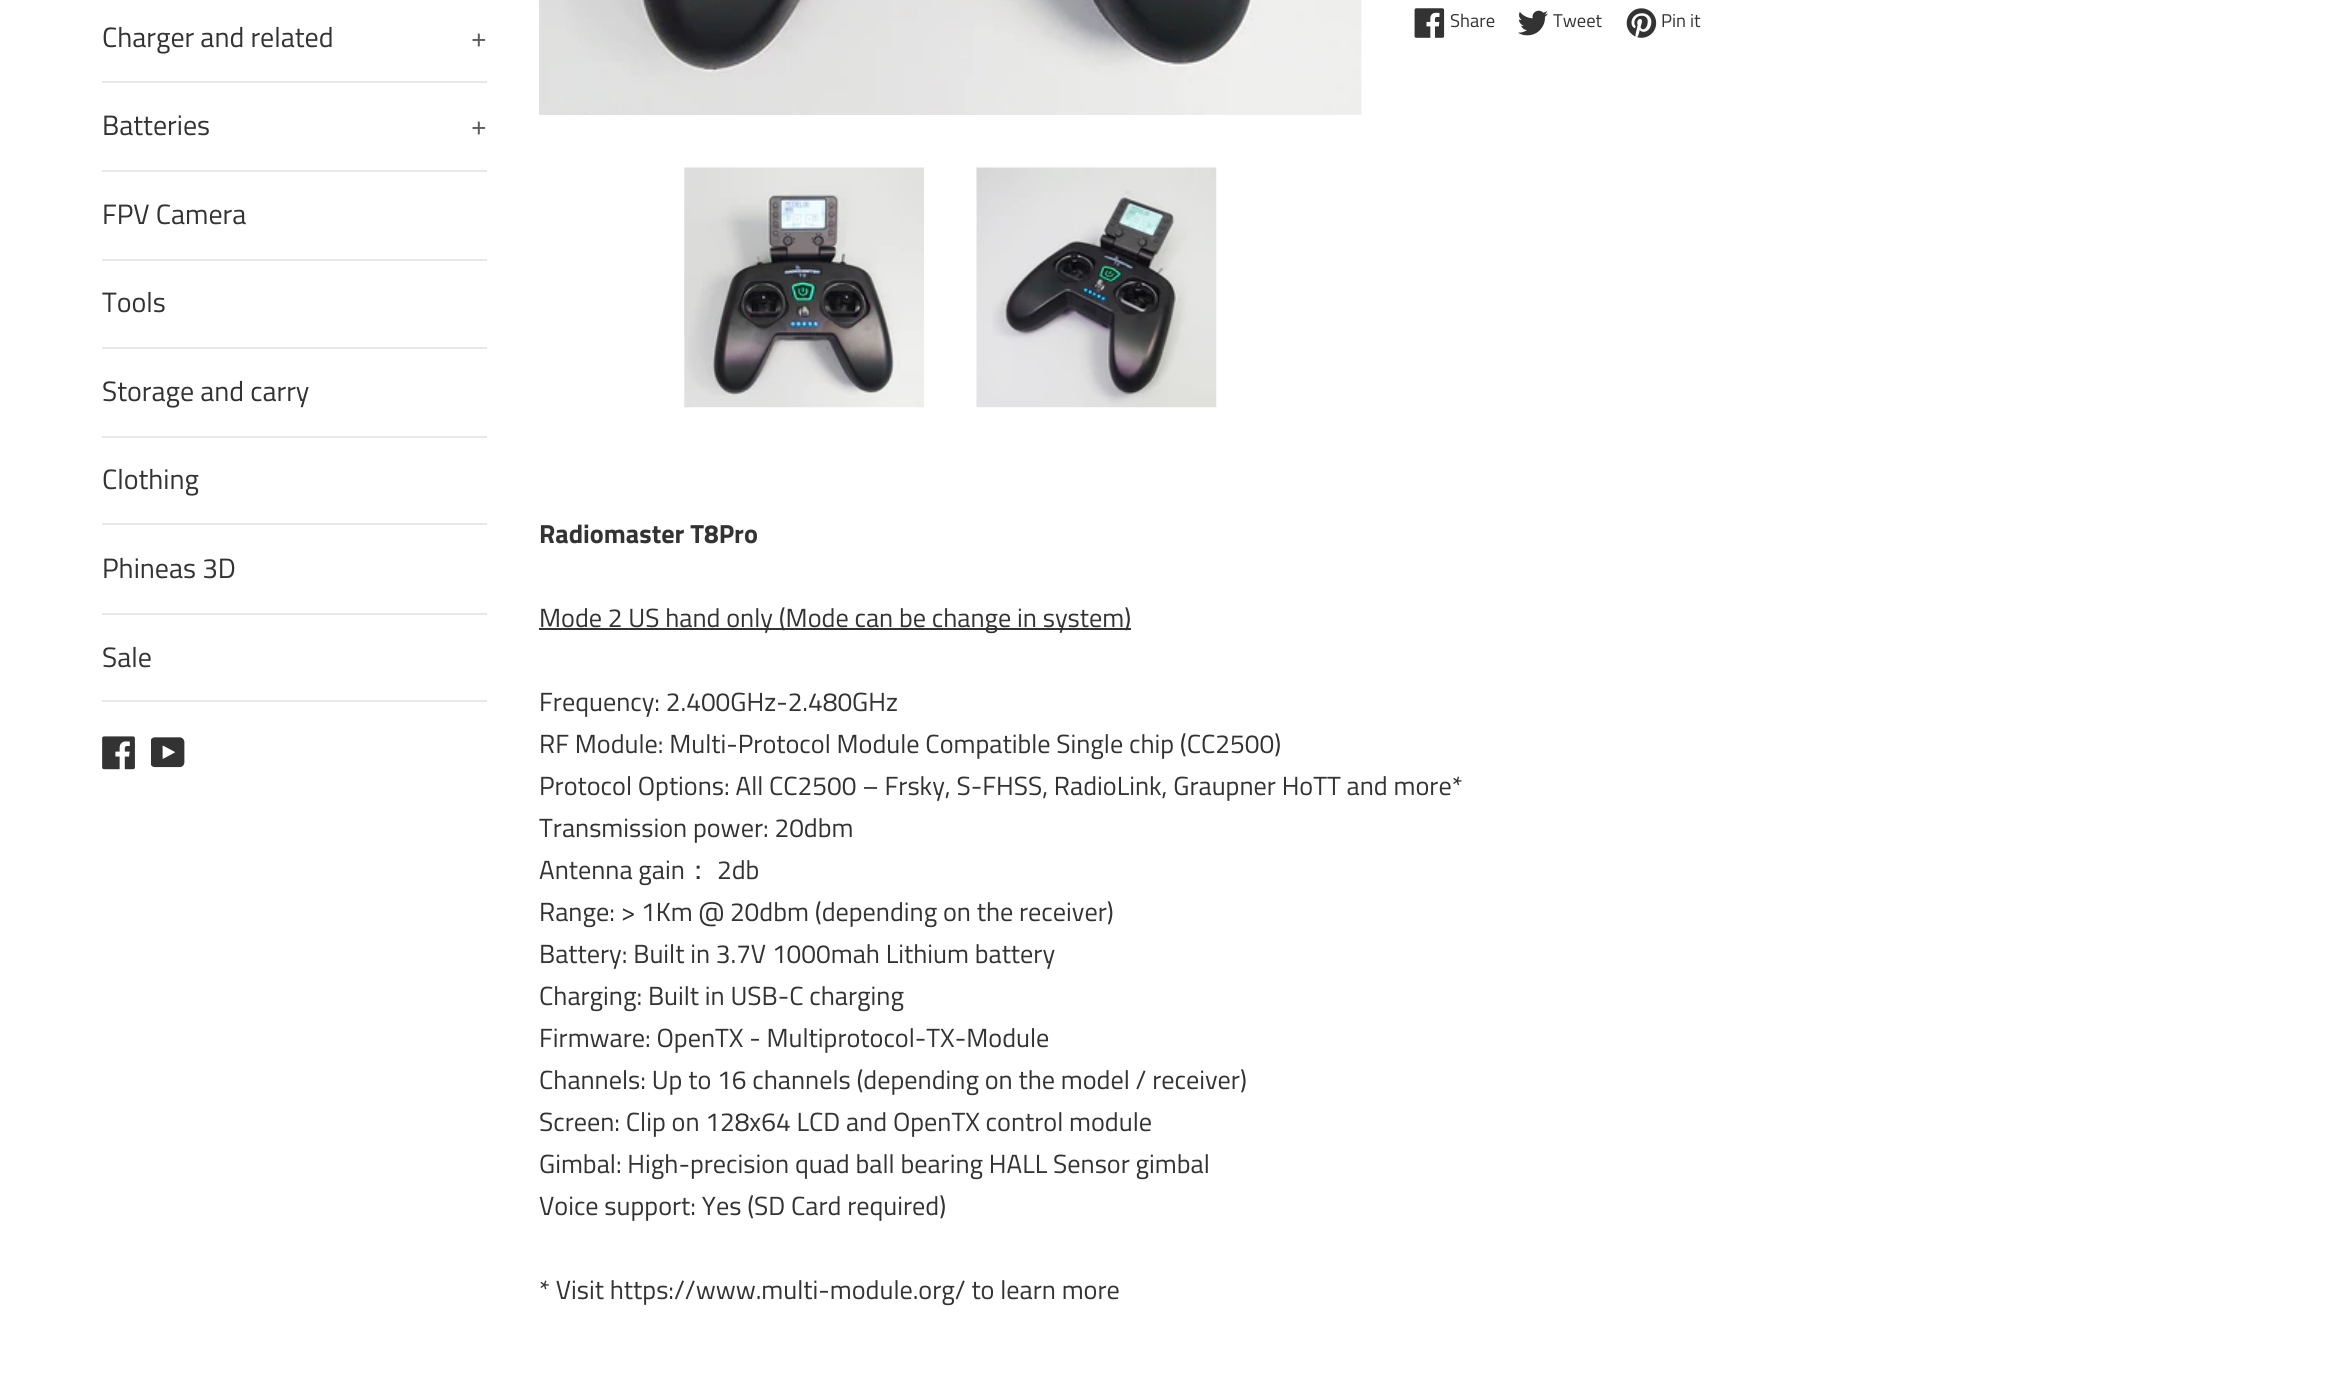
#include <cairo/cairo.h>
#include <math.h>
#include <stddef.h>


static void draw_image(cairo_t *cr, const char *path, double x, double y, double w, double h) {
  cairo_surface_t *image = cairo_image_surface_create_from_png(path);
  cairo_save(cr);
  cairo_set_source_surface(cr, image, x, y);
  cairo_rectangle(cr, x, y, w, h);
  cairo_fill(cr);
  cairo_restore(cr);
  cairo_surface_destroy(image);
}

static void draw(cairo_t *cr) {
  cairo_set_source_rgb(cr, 1, 1, 1);
  cairo_paint(cr);
  cairo_set_source_rgb(cr, 232 / 255.0, 232 / 255.0, 232 / 255.0);
  cairo_rectangle(cr, 102, 81, 385, 2);
  cairo_fill(cr);
  cairo_rectangle(cr, 102, 170, 385, 2);
  cairo_fill(cr);
  cairo_rectangle(cr, 102, 259, 385, 2);
  cairo_fill(cr);
  cairo_rectangle(cr, 102, 347, 385, 2);
  cairo_fill(cr);
  cairo_rectangle(cr, 102, 436, 385, 2);
  cairo_fill(cr);
  cairo_rectangle(cr, 102, 523, 385, 2);
  cairo_fill(cr);
  cairo_rectangle(cr, 102, 613, 385, 2);
  cairo_fill(cr);
  cairo_rectangle(cr, 102, 700, 385, 2);
  cairo_fill(cr);
  draw_image(cr, "images/1.png", 102, 736, 33, 34);
  draw_image(cr, "images/2.png", 151, 737, 34, 31);
  draw_image(cr, "images/3.png", 539, 0, 823, 115);
  draw_image(cr, "images/4.png", 684, 167, 240, 241);
  draw_image(cr, "images/5.png", 976, 167, 241, 241);
  draw_image(cr, "images/6.png", 1414, 8, 31, 30);
  draw_image(cr, "images/7.png", 1518, 10, 30, 26);
  draw_image(cr, "images/8.png", 1626, 8, 31, 30);
  cairo_set_source_rgb(cr, 51 / 255.0, 51 / 255.0, 51 / 255.0);
  cairo_rectangle(cr, 539, 628, 592, 2);
  cairo_fill(cr);
  cairo_select_font_face(cr, "Titillium Web", CAIRO_FONT_SLANT_NORMAL, CAIRO_FONT_WEIGHT_NORMAL);
  cairo_set_font_size(cr, 28);
  cairo_move_to(cr, 102, 47);
  cairo_show_text(cr, "Charger and related");
  cairo_set_source_rgb(cr, 92 / 255.0, 92 / 255.0, 92 / 255.0);
  cairo_move_to(cr, 471, 47);
  cairo_show_text(cr, "+");
  cairo_set_source_rgb(cr, 51 / 255.0, 51 / 255.0, 51 / 255.0);
  cairo_move_to(cr, 102, 135);
  cairo_show_text(cr, "Batteries");
  cairo_set_source_rgb(cr, 92 / 255.0, 92 / 255.0, 92 / 255.0);
  cairo_move_to(cr, 471, 135);
  cairo_show_text(cr, "+");
  cairo_set_source_rgb(cr, 51 / 255.0, 51 / 255.0, 51 / 255.0);
  cairo_move_to(cr, 102, 224);
  cairo_show_text(cr, "FPV Camera");
  cairo_move_to(cr, 102, 312);
  cairo_show_text(cr, "Tools");
  cairo_move_to(cr, 102, 401);
  cairo_show_text(cr, "Storage and carry");
  cairo_move_to(cr, 102, 489);
  cairo_show_text(cr, "Clothing");
  cairo_move_to(cr, 102, 578);
  cairo_show_text(cr, "Phineas 3D");
  cairo_move_to(cr, 102, 667);
  cairo_show_text(cr, "Sale");
  cairo_set_font_size(cr, 18.5);
  cairo_move_to(cr, 1450, 27);
  cairo_show_text(cr, "Share");
  cairo_move_to(cr, 1553, 27);
  cairo_show_text(cr, "Tweet");
  cairo_move_to(cr, 1661, 27);
  cairo_show_text(cr, "Pin it");
  cairo_select_font_face(cr, "Titillium Web", CAIRO_FONT_SLANT_NORMAL, CAIRO_FONT_WEIGHT_BOLD);
  cairo_set_font_size(cr, 26.25);
  cairo_move_to(cr, 539, 543);
  cairo_show_text(cr, "Radiomaster T8Pro");
  cairo_select_font_face(cr, "Titillium Web", CAIRO_FONT_SLANT_NORMAL, CAIRO_FONT_WEIGHT_NORMAL);
  cairo_move_to(cr, 539, 627);
  cairo_show_text(cr, "Mode 2 US hand only (Mode can be change in system)");
  cairo_move_to(cr, 539, 711);
  cairo_show_text(cr, "Frequency: 2.400GHz-2.480GHz");
  cairo_move_to(cr, 539, 753);
  cairo_show_text(cr, "RF Module: Multi-Protocol Module Compatible Single chip (CC2500)");
  cairo_move_to(cr, 539, 795);
  cairo_show_text(cr, "Protocol Options: All CC2500 – Frsky, S-FHSS, RadioLink, Graupner HoTT and more*");
  cairo_move_to(cr, 539, 837);
  cairo_show_text(cr, "Transmission power: 20dbm");
  cairo_move_to(cr, 539, 879);
  cairo_show_text(cr, "Antenna gain");
  cairo_select_font_face(cr, "WenQuanYi Zen Hei Medium", CAIRO_FONT_SLANT_NORMAL, CAIRO_FONT_WEIGHT_NORMAL);
  cairo_move_to(cr, 685, 879);
  cairo_show_text(cr, "：");
  cairo_select_font_face(cr, "Titillium Web", CAIRO_FONT_SLANT_NORMAL, CAIRO_FONT_WEIGHT_NORMAL);
  cairo_move_to(cr, 717, 879);
  cairo_show_text(cr, "2db");
  cairo_move_to(cr, 539, 921);
  cairo_show_text(cr, "Range: > 1Km @ 20dbm (depending on the receiver)");
  cairo_move_to(cr, 539, 963);
  cairo_show_text(cr, "Battery: Built in 3.7V 1000mah Lithium battery");
  cairo_move_to(cr, 539, 1005);
  cairo_show_text(cr, "Charging: Built in USB-C charging");
  cairo_move_to(cr, 539, 1047);
  cairo_show_text(cr, "Firmware: OpenTX - Multiprotocol-TX-Module");
  cairo_move_to(cr, 539, 1089);
  cairo_show_text(cr, "Channels: Up to 16 channels (depending on the model / receiver)");
  cairo_move_to(cr, 539, 1131);
  cairo_show_text(cr, "Screen: Clip on 128x64 LCD and OpenTX control module");
  cairo_move_to(cr, 539, 1173);
  cairo_show_text(cr, "Gimbal: High-precision quad ball bearing HALL Sensor gimbal");
  cairo_move_to(cr, 539, 1215);
  cairo_show_text(cr, "Voice support: Yes (SD Card required)");
  cairo_move_to(cr, 539, 1299);
  cairo_show_text(cr, "* Visit https://www.multi-module.org/ to learn more");
}

int main(void) {
  cairo_surface_t *surface = cairo_image_surface_create(CAIRO_FORMAT_RGB24, 2337, 1397);
  cairo_t *cr = cairo_create(surface);
  cairo_font_options_t *options = cairo_font_options_create();
  cairo_font_options_set_hint_metrics(options, CAIRO_HINT_METRICS_OFF);
  cairo_font_options_set_hint_style(options, CAIRO_HINT_STYLE_NONE);
  cairo_set_font_options(cr, options);
  cairo_set_miter_limit(cr, 4);
  draw(cr);
  cairo_surface_write_to_png(surface, "out.png");
  cairo_font_options_destroy(options);
  cairo_destroy(cr);
  cairo_surface_destroy(surface);
  return 0;
}
